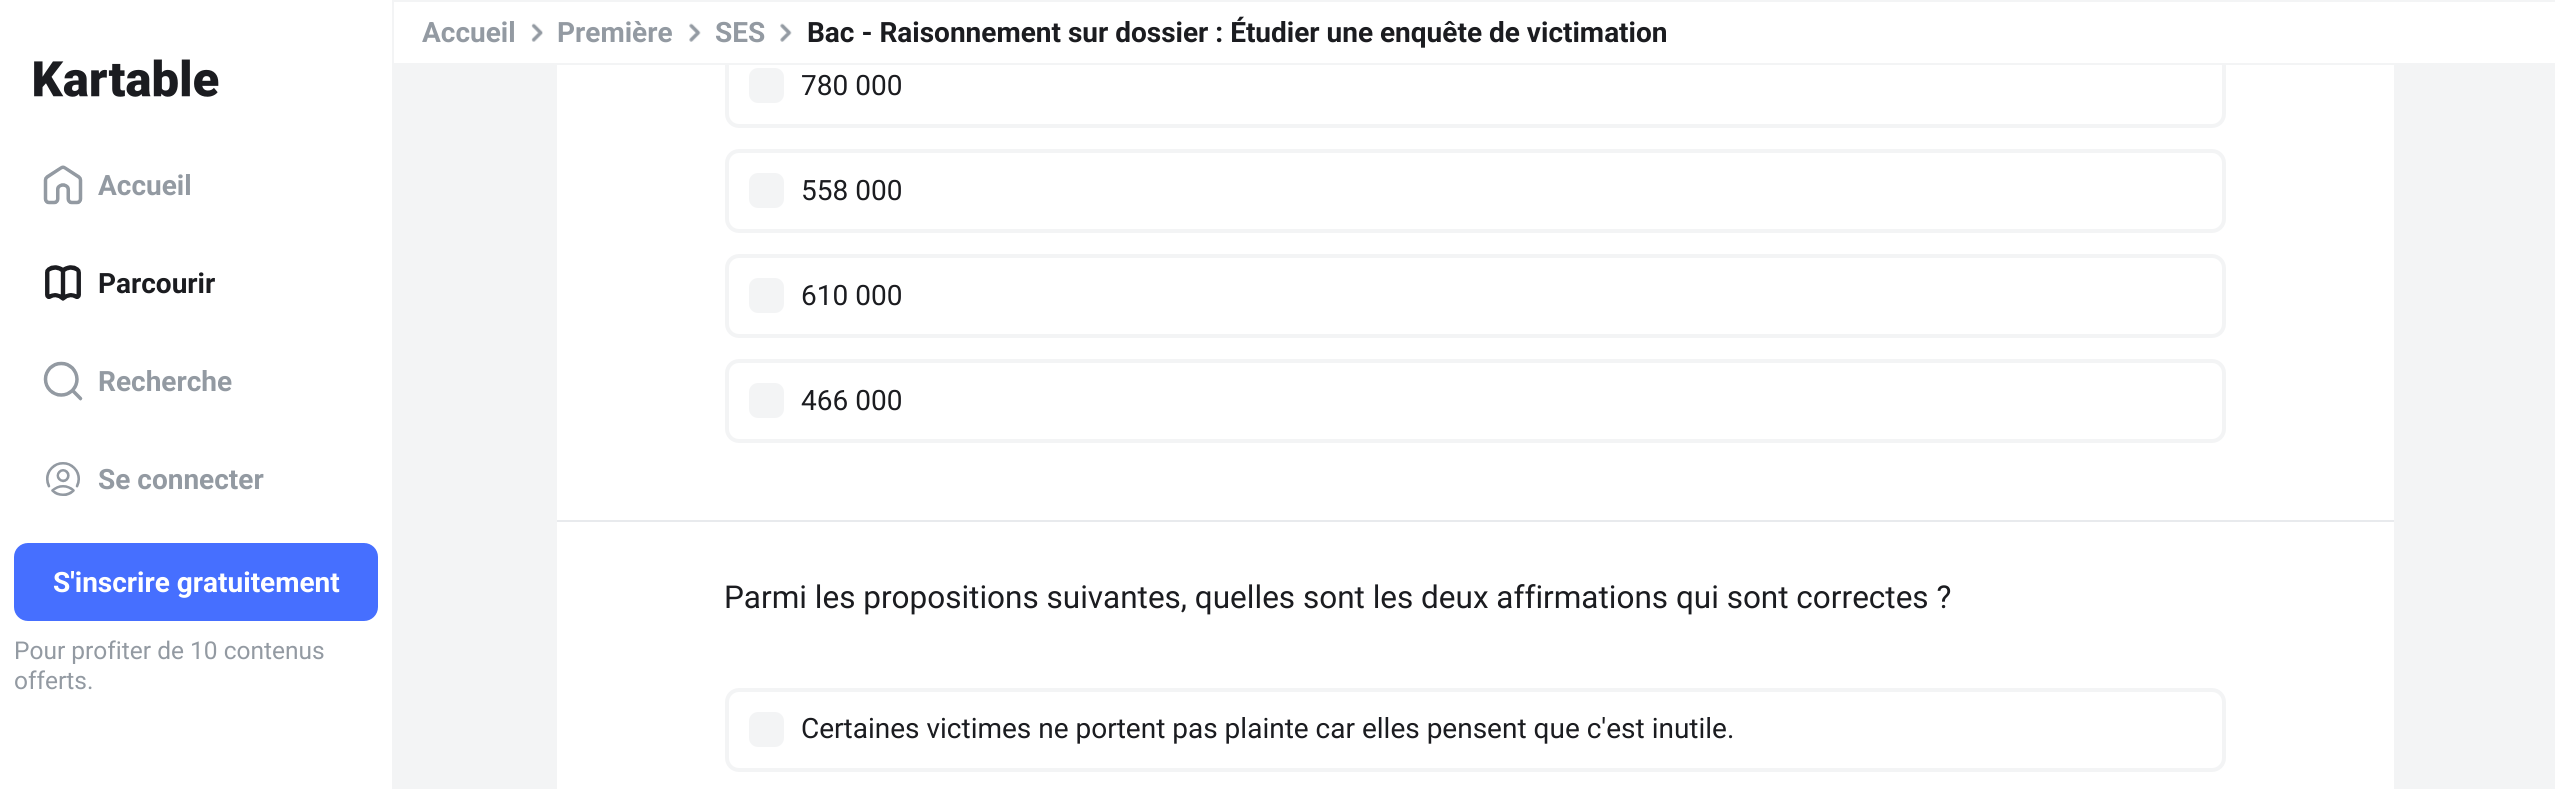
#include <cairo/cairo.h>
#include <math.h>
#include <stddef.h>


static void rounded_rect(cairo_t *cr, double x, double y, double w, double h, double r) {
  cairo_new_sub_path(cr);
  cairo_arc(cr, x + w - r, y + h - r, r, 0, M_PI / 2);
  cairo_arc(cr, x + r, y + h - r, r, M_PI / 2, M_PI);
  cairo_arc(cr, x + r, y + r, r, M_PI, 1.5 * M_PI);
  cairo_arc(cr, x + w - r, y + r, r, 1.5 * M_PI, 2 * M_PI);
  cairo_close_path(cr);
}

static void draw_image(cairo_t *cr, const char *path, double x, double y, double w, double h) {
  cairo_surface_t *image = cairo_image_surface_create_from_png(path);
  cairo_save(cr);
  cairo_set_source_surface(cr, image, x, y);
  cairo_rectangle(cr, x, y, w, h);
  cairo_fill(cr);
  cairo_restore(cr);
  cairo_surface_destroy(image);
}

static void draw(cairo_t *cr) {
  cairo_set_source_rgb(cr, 1, 1, 1);
  cairo_paint(cr);
  cairo_set_source_rgb(cr, 243 / 255.0, 244 / 255.0, 245 / 255.0);
  cairo_rectangle(cr, 392, 0, 2, 789);
  cairo_fill(cr);
  draw_image(cr, "images/1.png", 34, 59, 185, 38);
  draw_image(cr, "images/2.png", 43, 165, 40, 40);
  draw_image(cr, "images/3.png", 45, 265, 36, 36);
  draw_image(cr, "images/4.png", 43, 361, 40, 40);
  draw_image(cr, "images/5.png", 46, 462, 34, 34);
  cairo_set_source_rgb(cr, 70 / 255.0, 111 / 255.0, 1);
  rounded_rect(cr, 14, 543, 364, 78, 14);
  cairo_fill(cr);
  cairo_set_source_rgb(cr, 243 / 255.0, 244 / 255.0, 245 / 255.0);
  cairo_rectangle(cr, 394, 65, 2161, 724);
  cairo_fill(cr);
  cairo_set_source_rgb(cr, 1, 1, 1);
  cairo_rectangle(cr, 557, 65, 1837, 724);
  cairo_fill(cr);
  cairo_set_source_rgb(cr, 243 / 255.0, 244 / 255.0, 245 / 255.0);
  rounded_rect(cr, 751, 70, 31, 31, 7);
  cairo_fill_preserve(cr);
  cairo_set_line_width(cr, 4);
  cairo_stroke(cr);
  rounded_rect(cr, 727, 46, 1497, 80, 12);
  cairo_stroke(cr);
  cairo_set_source_rgb(cr, 1, 1, 1);
  cairo_rectangle(cr, 725, 44, 1501, 19);
  cairo_fill(cr);
  cairo_set_source_rgb(cr, 243 / 255.0, 244 / 255.0, 245 / 255.0);
  cairo_rectangle(cr, 394, 0, 2161, 2);
  cairo_fill(cr);
  cairo_rectangle(cr, 394, 63, 2161, 2);
  cairo_fill(cr);
  draw_image(cr, "images/6.png", 531, 23, 12, 19);
  draw_image(cr, "images/7.png", 689, 23, 12, 19);
  draw_image(cr, "images/7.png", 780, 23, 12, 19);
  cairo_set_source_rgb(cr, 232 / 255.0, 234 / 255.0, 237 / 255.0);
  cairo_rectangle(cr, 557, 520, 1837, 2);
  cairo_fill(cr);
  cairo_set_source_rgb(cr, 243 / 255.0, 244 / 255.0, 245 / 255.0);
  rounded_rect(cr, 751, 175, 31, 31, 7);
  cairo_fill_preserve(cr);
  cairo_stroke(cr);
  rounded_rect(cr, 727, 151, 1497, 80, 12);
  cairo_stroke(cr);
  rounded_rect(cr, 751, 280, 31, 31, 7);
  cairo_fill_preserve(cr);
  cairo_stroke(cr);
  rounded_rect(cr, 727, 256, 1497, 80, 12);
  cairo_stroke(cr);
  rounded_rect(cr, 751, 385, 31, 31, 7);
  cairo_fill_preserve(cr);
  cairo_stroke(cr);
  rounded_rect(cr, 727, 361, 1497, 80, 12);
  cairo_stroke(cr);
  rounded_rect(cr, 751, 714, 31, 31, 7);
  cairo_fill_preserve(cr);
  cairo_stroke(cr);
  rounded_rect(cr, 727, 690, 1497, 80, 12);
  cairo_stroke(cr);
  cairo_select_font_face(cr, "Roboto", CAIRO_FONT_SLANT_NORMAL, CAIRO_FONT_WEIGHT_BOLD);
  cairo_set_font_size(cr, 28);
  cairo_set_source_rgb(cr, 147 / 255.0, 154 / 255.0, 162 / 255.0);
  cairo_move_to(cr, 98, 195);
  cairo_show_text(cr, "Accueil");
  cairo_set_source_rgb(cr, 27 / 255.0, 28 / 255.0, 32 / 255.0);
  cairo_move_to(cr, 98, 293);
  cairo_show_text(cr, "Parcourir");
  cairo_set_source_rgb(cr, 147 / 255.0, 154 / 255.0, 162 / 255.0);
  cairo_move_to(cr, 98, 391);
  cairo_show_text(cr, "Recherche");
  cairo_move_to(cr, 98, 489);
  cairo_show_text(cr, "Se connecter");
  cairo_set_source_rgb(cr, 1, 1, 1);
  cairo_move_to(cr, 53, 592);
  cairo_show_text(cr, "S'inscrire gratuitement");
  cairo_select_font_face(cr, "Roboto", CAIRO_FONT_SLANT_NORMAL, CAIRO_FONT_WEIGHT_NORMAL);
  cairo_set_font_size(cr, 24.5);
  cairo_set_source_rgb(cr, 147 / 255.0, 154 / 255.0, 162 / 255.0);
  cairo_move_to(cr, 14, 659);
  cairo_show_text(cr, "Pour profiter de 10 contenus");
  cairo_move_to(cr, 14, 689);
  cairo_show_text(cr, "offerts.");
  cairo_select_font_face(cr, "Roboto", CAIRO_FONT_SLANT_NORMAL, CAIRO_FONT_WEIGHT_BOLD);
  cairo_set_font_size(cr, 28);
  cairo_move_to(cr, 422, 42);
  cairo_show_text(cr, "Accueil");
  cairo_move_to(cr, 557, 42);
  cairo_show_text(cr, "Première");
  cairo_move_to(cr, 715, 42);
  cairo_show_text(cr, "SES");
  cairo_set_source_rgb(cr, 27 / 255.0, 28 / 255.0, 32 / 255.0);
  cairo_move_to(cr, 807, 42);
  cairo_show_text(cr, "Bac - Raisonnement sur dossier : Étudier une enquête de victimation");
  cairo_select_font_face(cr, "Roboto", CAIRO_FONT_SLANT_NORMAL, CAIRO_FONT_WEIGHT_NORMAL);
  cairo_move_to(cr, 801, 95);
  cairo_show_text(cr, "780 000");
  cairo_move_to(cr, 801, 200);
  cairo_show_text(cr, "558 000");
  cairo_move_to(cr, 801, 305);
  cairo_show_text(cr, "610 000");
  cairo_move_to(cr, 801, 410);
  cairo_show_text(cr, "466 000");
  cairo_set_font_size(cr, 31.5);
  cairo_move_to(cr, 724, 608);
  cairo_show_text(cr, "Parmi les propositions suivantes, quelles sont les deux affirmations qui sont correctes ?");
  cairo_set_font_size(cr, 28);
  cairo_move_to(cr, 801, 738);
  cairo_show_text(cr, "Certaines victimes ne portent pas plainte car elles pensent que c'est inutile.");
}

int main(void) {
  cairo_surface_t *surface = cairo_image_surface_create(CAIRO_FORMAT_RGB24, 2555, 789);
  cairo_t *cr = cairo_create(surface);
  cairo_font_options_t *options = cairo_font_options_create();
  cairo_font_options_set_hint_metrics(options, CAIRO_HINT_METRICS_OFF);
  cairo_font_options_set_hint_style(options, CAIRO_HINT_STYLE_NONE);
  cairo_set_font_options(cr, options);
  cairo_set_miter_limit(cr, 4);
  draw(cr);
  cairo_surface_write_to_png(surface, "out.png");
  cairo_font_options_destroy(options);
  cairo_destroy(cr);
  cairo_surface_destroy(surface);
  return 0;
}
